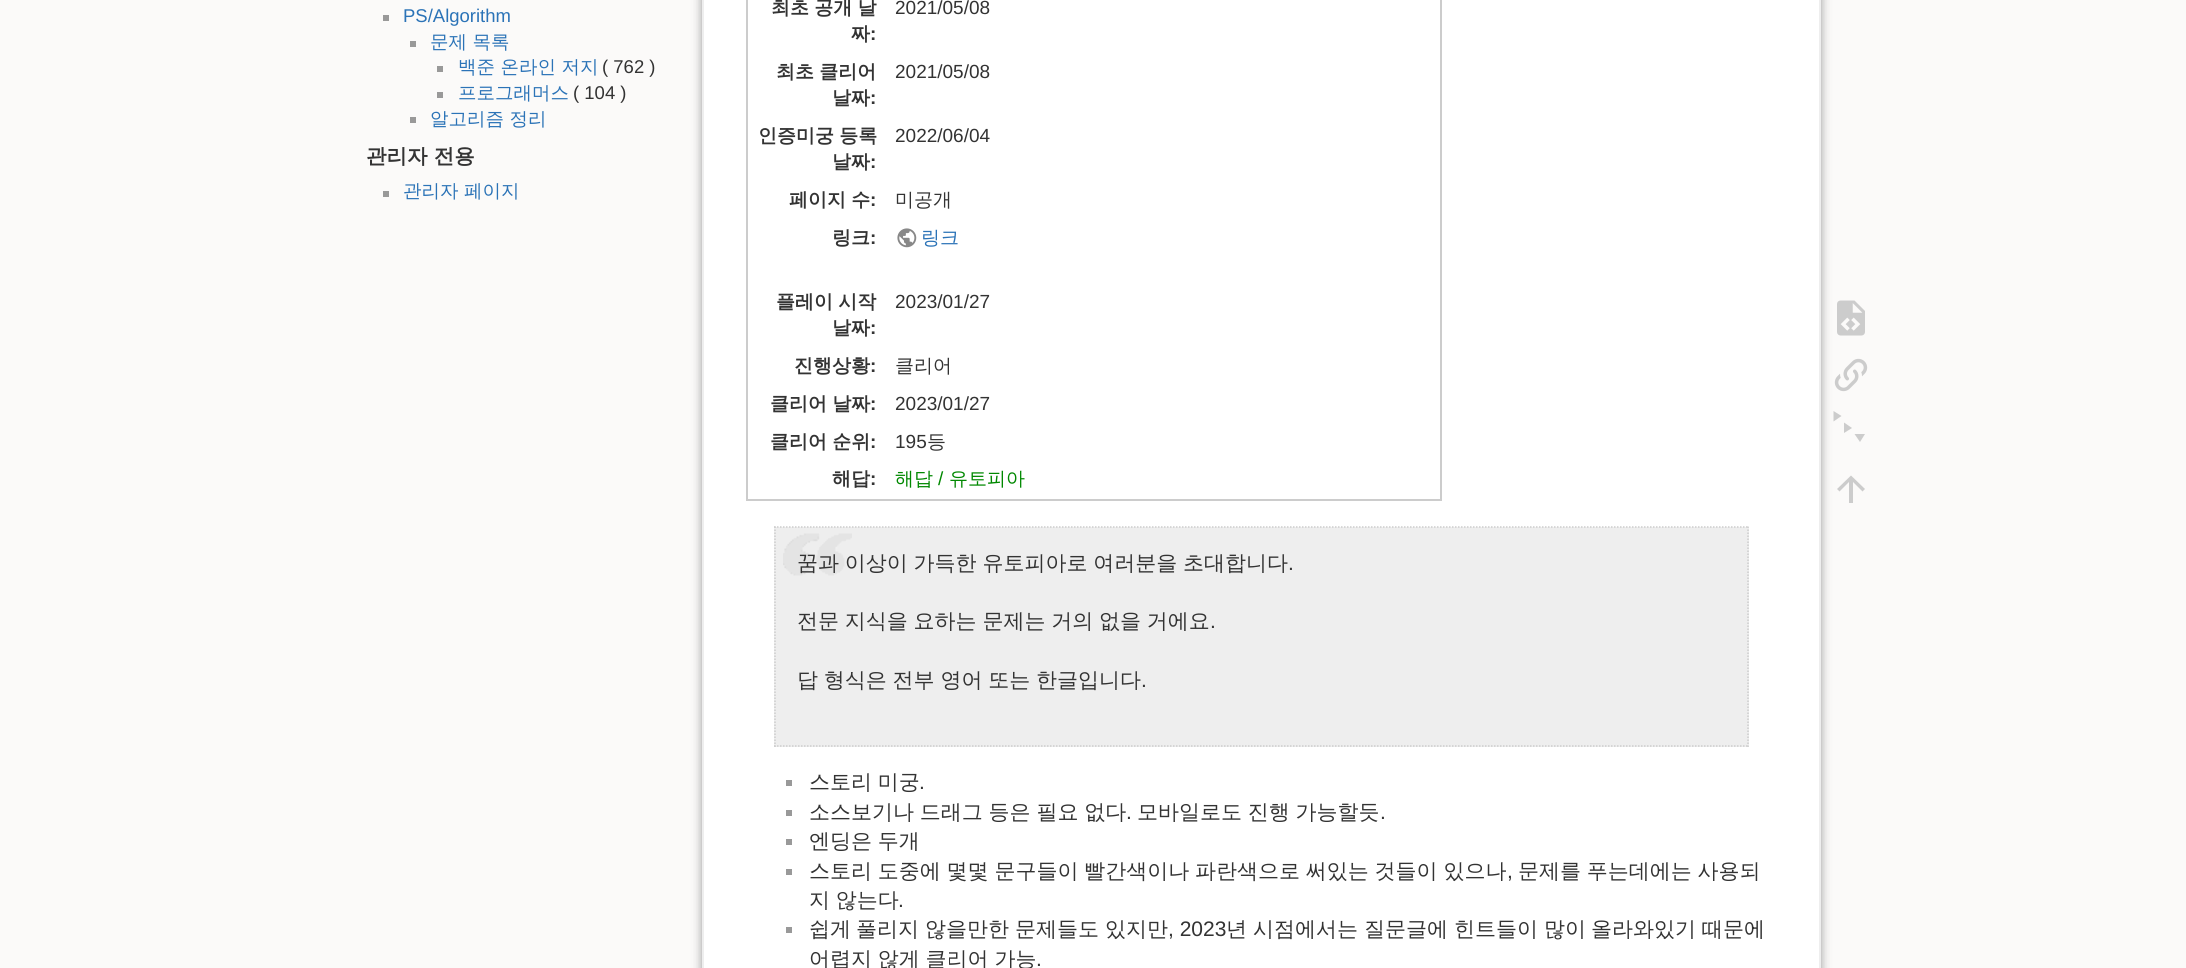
#include <cairo/cairo.h>
#include <math.h>
#include <stddef.h>


static void draw_spaced(cairo_t *cr, double x, double y, const char *s, double letter, double word) {
  cairo_move_to(cr, x, y);
  while (*s) {
    char ch[5] = {0};
    int n = 0;
    do ch[n++] = *s++; while ((*s & 0xC0) == 0x80);
    cairo_show_text(cr, ch);
    cairo_rel_move_to(cr, letter + word * (*ch == ' '), 0);
  }
}

static void rounded_rect(cairo_t *cr, double x, double y, double w, double h, double r) {
  cairo_new_sub_path(cr);
  cairo_arc(cr, x + w - r, y + h - r, r, 0, M_PI / 2);
  cairo_arc(cr, x + r, y + h - r, r, M_PI / 2, M_PI);
  cairo_arc(cr, x + r, y + r, r, M_PI, 1.5 * M_PI);
  cairo_arc(cr, x + w - r, y + r, r, 1.5 * M_PI, 2 * M_PI);
  cairo_close_path(cr);
}

static void draw_shadow(cairo_t *cr, double x, double y, double w, double h, double r, double blur, double alpha) {
  cairo_push_group_with_content(cr, CAIRO_CONTENT_ALPHA);
  cairo_set_operator(cr, CAIRO_OPERATOR_SOURCE);
  for (int i = 15; i >= -15 && fmin(w, h) + blur * i / 3 > 0; i -= 2) {
    double e = blur * i / 6;
    cairo_set_source_rgba(cr, 0, 0, 0, alpha * erfc((i - 1) / 8.5) / 2);
    rounded_rect(cr, x - e, y - e, w + 2 * e, h + 2 * e, fmax(0, fmin(r + e + blur * .6, fmin(w, h) / 2 + e)));
    cairo_fill(cr);
  }
  cairo_pattern_t *soft = cairo_pop_group(cr);
  cairo_mask(cr, soft);
  cairo_pattern_destroy(soft);
}

static void draw_image(cairo_t *cr, const char *path, double x, double y, double w, double h) {
  cairo_surface_t *image = cairo_image_surface_create_from_png(path);
  cairo_save(cr);
  cairo_set_source_surface(cr, image, x, y);
  cairo_rectangle(cr, x, y, w, h);
  cairo_fill(cr);
  cairo_restore(cr);
  cairo_surface_destroy(image);
}

static void draw(cairo_t *cr) {
  cairo_set_source_rgb(cr, 251 / 255.0, 250 / 255.0, 249 / 255.0);
  cairo_paint(cr);
  cairo_set_source_rgb(cr, 153 / 255.0, 153 / 255.0, 153 / 255.0);
  cairo_rectangle(cr, 383, 15, 6, 6);
  cairo_fill(cr);
  cairo_rectangle(cr, 410, 41, 6, 6);
  cairo_fill(cr);
  cairo_rectangle(cr, 437, 66, 6, 6);
  cairo_fill(cr);
  cairo_rectangle(cr, 437, 92, 6, 6);
  cairo_fill(cr);
  cairo_rectangle(cr, 410, 117, 6, 6);
  cairo_fill(cr);
  cairo_rectangle(cr, 383, 191, 6, 6);
  cairo_fill(cr);
  cairo_set_source_rgb(cr, 153 / 255.0, 153 / 255.0, 153 / 255.0);
  draw_shadow(cr, 702, -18, 1119, 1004, 3, 5, 1);
  cairo_set_source_rgb(cr, 1, 1, 1);
  cairo_rectangle(cr, 703, -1, 1117, 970);
  cairo_fill_preserve(cr);
  cairo_set_source_rgb(cr, 238 / 255.0, 238 / 255.0, 238 / 255.0);
  cairo_stroke(cr);
  cairo_rectangle(cr, 747, -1, 694, 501);
  cairo_set_source_rgb(cr, 204 / 255.0, 204 / 255.0, 204 / 255.0);
  cairo_stroke(cr);
  draw_image(cr, "images/1.png", 897, 228, 20, 20);
  cairo_set_source_rgb(cr, 238 / 255.0, 238 / 255.0, 238 / 255.0);
  cairo_rectangle(cr, 774, 527, 975, 220);
  cairo_fill(cr);
  draw_image(cr, "images/2.png", 783, 533, 69, 43);
  cairo_new_path(cr);
  cairo_move_to(cr, 774, 527);
  cairo_line_to(cr, 1749, 527);
  cairo_set_source_rgb(cr, 204 / 255.0, 204 / 255.0, 204 / 255.0);
  cairo_set_line_width(cr, 1.5);
  cairo_set_dash(cr, (double[]){1.5, 1.5}, 2, 0);
  cairo_stroke(cr);
  cairo_new_path(cr);
  cairo_move_to(cr, 1748, 526.5);
  cairo_line_to(cr, 1748, 747);
  cairo_stroke(cr);
  cairo_new_path(cr);
  cairo_move_to(cr, 774, 746);
  cairo_line_to(cr, 1749, 746);
  cairo_stroke(cr);
  cairo_new_path(cr);
  cairo_move_to(cr, 775, 526.5);
  cairo_line_to(cr, 775, 747);
  cairo_stroke(cr);
  cairo_set_source_rgb(cr, 153 / 255.0, 153 / 255.0, 153 / 255.0);
  cairo_rectangle(cr, 786, 780, 6, 6);
  cairo_fill(cr);
  cairo_rectangle(cr, 786, 810, 6, 6);
  cairo_fill(cr);
  cairo_rectangle(cr, 786, 839, 6, 6);
  cairo_fill(cr);
  cairo_rectangle(cr, 786, 869, 6, 6);
  cairo_fill(cr);
  cairo_rectangle(cr, 786, 927, 6, 6);
  cairo_fill(cr);
  draw_image(cr, "images/3.png", 1837, 300, 28, 36);
  draw_image(cr, "images/4.png", 1834, 358, 34, 34);
  cairo_set_source_rgb(cr, 204 / 255.0, 204 / 255.0, 204 / 255.0);
  cairo_new_path(cr);
  cairo_move_to(cr, 1833.5, 411);
  cairo_line_to(cr, 1841.5, 416);
  cairo_line_to(cr, 1833.5, 421.5);
  cairo_close_path(cr);
  cairo_move_to(cr, 1844, 422.5);
  cairo_line_to(cr, 1852, 428);
  cairo_line_to(cr, 1844, 433);
  cairo_close_path(cr);
  cairo_move_to(cr, 1854.5, 434);
  cairo_line_to(cr, 1865, 434);
  cairo_line_to(cr, 1860, 442);
  cairo_close_path(cr);
  cairo_fill(cr);
  cairo_new_path(cr);
  cairo_move_to(cr, 1853, 503);
  cairo_line_to(cr, 1849, 503);
  cairo_line_to(cr, 1849, 482);
  cairo_line_to(cr, 1839.5, 491.5);
  cairo_line_to(cr, 1837, 489);
  cairo_line_to(cr, 1851, 475.5);
  cairo_line_to(cr, 1865, 489);
  cairo_line_to(cr, 1862.5, 491.5);
  cairo_line_to(cr, 1853, 482);
  cairo_close_path(cr);
  cairo_fill(cr);
  cairo_select_font_face(cr, "Liberation Sans", CAIRO_FONT_SLANT_NORMAL, CAIRO_FONT_WEIGHT_NORMAL);
  cairo_set_font_size(cr, 18.5);
  cairo_set_source_rgb(cr, 43 / 255.0, 115 / 255.0, 183 / 255.0);
  cairo_move_to(cr, 403, 22);
  cairo_show_text(cr, "PS/Algorithm");
  cairo_select_font_face(cr, "WenQuanYi Zen Hei Medium", CAIRO_FONT_SLANT_NORMAL, CAIRO_FONT_WEIGHT_NORMAL);
  cairo_move_to(cr, 430, 48);
  cairo_show_text(cr, "문제 목록");
  cairo_move_to(cr, 458, 73);
  cairo_show_text(cr, "백준 온라인 저지");
  cairo_select_font_face(cr, "Liberation Sans", CAIRO_FONT_SLANT_NORMAL, CAIRO_FONT_WEIGHT_NORMAL);
  cairo_set_source_rgb(cr, 51 / 255.0, 51 / 255.0, 51 / 255.0);
  cairo_move_to(cr, 602, 73);
  cairo_show_text(cr, "( 762 )");
  cairo_select_font_face(cr, "WenQuanYi Zen Hei Medium", CAIRO_FONT_SLANT_NORMAL, CAIRO_FONT_WEIGHT_NORMAL);
  cairo_set_source_rgb(cr, 43 / 255.0, 115 / 255.0, 183 / 255.0);
  cairo_move_to(cr, 458, 99);
  cairo_show_text(cr, "프로그래머스");
  cairo_select_font_face(cr, "Liberation Sans", CAIRO_FONT_SLANT_NORMAL, CAIRO_FONT_WEIGHT_NORMAL);
  cairo_set_source_rgb(cr, 51 / 255.0, 51 / 255.0, 51 / 255.0);
  cairo_move_to(cr, 573, 99);
  cairo_show_text(cr, "( 104 )");
  cairo_select_font_face(cr, "WenQuanYi Zen Hei Medium", CAIRO_FONT_SLANT_NORMAL, CAIRO_FONT_WEIGHT_NORMAL);
  cairo_set_source_rgb(cr, 43 / 255.0, 115 / 255.0, 183 / 255.0);
  cairo_move_to(cr, 430, 125);
  cairo_show_text(cr, "알고리즘 정리");
  cairo_select_font_face(cr, "WenQuanYi Zen Hei", CAIRO_FONT_SLANT_NORMAL, CAIRO_FONT_WEIGHT_BOLD);
  cairo_set_font_size(cr, 20.5);
  cairo_set_source_rgb(cr, 51 / 255.0, 51 / 255.0, 51 / 255.0);
  cairo_move_to(cr, 366, 163);
  cairo_show_text(cr, "관리자 전용");
  cairo_select_font_face(cr, "WenQuanYi Zen Hei Medium", CAIRO_FONT_SLANT_NORMAL, CAIRO_FONT_WEIGHT_NORMAL);
  cairo_set_font_size(cr, 18.5);
  cairo_set_source_rgb(cr, 43 / 255.0, 115 / 255.0, 183 / 255.0);
  cairo_move_to(cr, 403, 197);
  cairo_show_text(cr, "관리자 페이지");
  cairo_select_font_face(cr, "WenQuanYi Zen Hei", CAIRO_FONT_SLANT_NORMAL, CAIRO_FONT_WEIGHT_BOLD);
  cairo_set_font_size(cr, 19);
  cairo_set_source_rgb(cr, 51 / 255.0, 51 / 255.0, 51 / 255.0);
  draw_spaced(cr, 771, 14, "최초 공개 날", 0, -0.5);
  cairo_move_to(cr, 851, 40);
  cairo_show_text(cr, "짜");
  cairo_select_font_face(cr, "Liberation Sans", CAIRO_FONT_SLANT_NORMAL, CAIRO_FONT_WEIGHT_BOLD);
  cairo_move_to(cr, 870, 40);
  cairo_show_text(cr, ":");
  cairo_select_font_face(cr, "Liberation Sans", CAIRO_FONT_SLANT_NORMAL, CAIRO_FONT_WEIGHT_NORMAL);
  cairo_move_to(cr, 895, 14);
  cairo_show_text(cr, "2021/05/08");
  cairo_select_font_face(cr, "WenQuanYi Zen Hei", CAIRO_FONT_SLANT_NORMAL, CAIRO_FONT_WEIGHT_BOLD);
  draw_spaced(cr, 776, 78, "최초 클리어", 0, -0.5);
  cairo_move_to(cr, 832, 104);
  cairo_show_text(cr, "날짜");
  cairo_select_font_face(cr, "Liberation Sans", CAIRO_FONT_SLANT_NORMAL, CAIRO_FONT_WEIGHT_BOLD);
  cairo_move_to(cr, 870, 104);
  cairo_show_text(cr, ":");
  cairo_select_font_face(cr, "Liberation Sans", CAIRO_FONT_SLANT_NORMAL, CAIRO_FONT_WEIGHT_NORMAL);
  cairo_move_to(cr, 895, 78);
  cairo_show_text(cr, "2021/05/08");
  cairo_select_font_face(cr, "WenQuanYi Zen Hei", CAIRO_FONT_SLANT_NORMAL, CAIRO_FONT_WEIGHT_BOLD);
  draw_spaced(cr, 758, 142, "인증미궁 등록", 0, -0.5);
  cairo_move_to(cr, 832, 168);
  cairo_show_text(cr, "날짜");
  cairo_select_font_face(cr, "Liberation Sans", CAIRO_FONT_SLANT_NORMAL, CAIRO_FONT_WEIGHT_BOLD);
  cairo_move_to(cr, 870, 168);
  cairo_show_text(cr, ":");
  cairo_select_font_face(cr, "Liberation Sans", CAIRO_FONT_SLANT_NORMAL, CAIRO_FONT_WEIGHT_NORMAL);
  cairo_move_to(cr, 895, 142);
  cairo_show_text(cr, "2022/06/04");
  cairo_select_font_face(cr, "WenQuanYi Zen Hei", CAIRO_FONT_SLANT_NORMAL, CAIRO_FONT_WEIGHT_BOLD);
  draw_spaced(cr, 789, 206, "페이지 수", 0, -0.5);
  cairo_select_font_face(cr, "Liberation Sans", CAIRO_FONT_SLANT_NORMAL, CAIRO_FONT_WEIGHT_BOLD);
  cairo_move_to(cr, 870, 206);
  cairo_show_text(cr, ":");
  cairo_select_font_face(cr, "WenQuanYi Zen Hei Medium", CAIRO_FONT_SLANT_NORMAL, CAIRO_FONT_WEIGHT_NORMAL);
  cairo_move_to(cr, 895, 206);
  cairo_show_text(cr, "미공개");
  cairo_select_font_face(cr, "WenQuanYi Zen Hei", CAIRO_FONT_SLANT_NORMAL, CAIRO_FONT_WEIGHT_BOLD);
  cairo_move_to(cr, 832, 244);
  cairo_show_text(cr, "링크");
  cairo_select_font_face(cr, "Liberation Sans", CAIRO_FONT_SLANT_NORMAL, CAIRO_FONT_WEIGHT_BOLD);
  cairo_move_to(cr, 870, 244);
  cairo_show_text(cr, ":");
  cairo_select_font_face(cr, "WenQuanYi Zen Hei Medium", CAIRO_FONT_SLANT_NORMAL, CAIRO_FONT_WEIGHT_NORMAL);
  cairo_set_source_rgb(cr, 43 / 255.0, 115 / 255.0, 183 / 255.0);
  cairo_move_to(cr, 921, 244);
  cairo_show_text(cr, "링크");
  cairo_select_font_face(cr, "WenQuanYi Zen Hei", CAIRO_FONT_SLANT_NORMAL, CAIRO_FONT_WEIGHT_BOLD);
  cairo_set_source_rgb(cr, 51 / 255.0, 51 / 255.0, 51 / 255.0);
  draw_spaced(cr, 776, 308, "플레이 시작", 0, -0.5);
  cairo_move_to(cr, 832, 334);
  cairo_show_text(cr, "날짜");
  cairo_select_font_face(cr, "Liberation Sans", CAIRO_FONT_SLANT_NORMAL, CAIRO_FONT_WEIGHT_BOLD);
  cairo_move_to(cr, 870, 334);
  cairo_show_text(cr, ":");
  cairo_select_font_face(cr, "Liberation Sans", CAIRO_FONT_SLANT_NORMAL, CAIRO_FONT_WEIGHT_NORMAL);
  cairo_move_to(cr, 895, 308);
  cairo_show_text(cr, "2023/01/27");
  cairo_select_font_face(cr, "WenQuanYi Zen Hei", CAIRO_FONT_SLANT_NORMAL, CAIRO_FONT_WEIGHT_BOLD);
  cairo_move_to(cr, 794, 372);
  cairo_show_text(cr, "진행상황");
  cairo_select_font_face(cr, "Liberation Sans", CAIRO_FONT_SLANT_NORMAL, CAIRO_FONT_WEIGHT_BOLD);
  cairo_move_to(cr, 870, 372);
  cairo_show_text(cr, ":");
  cairo_select_font_face(cr, "WenQuanYi Zen Hei Medium", CAIRO_FONT_SLANT_NORMAL, CAIRO_FONT_WEIGHT_NORMAL);
  cairo_move_to(cr, 895, 372);
  cairo_show_text(cr, "클리어");
  cairo_select_font_face(cr, "WenQuanYi Zen Hei", CAIRO_FONT_SLANT_NORMAL, CAIRO_FONT_WEIGHT_BOLD);
  draw_spaced(cr, 770, 410, "클리어 날짜", 0, -0.5);
  cairo_select_font_face(cr, "Liberation Sans", CAIRO_FONT_SLANT_NORMAL, CAIRO_FONT_WEIGHT_BOLD);
  cairo_move_to(cr, 870, 410);
  cairo_show_text(cr, ":");
  cairo_select_font_face(cr, "Liberation Sans", CAIRO_FONT_SLANT_NORMAL, CAIRO_FONT_WEIGHT_NORMAL);
  cairo_move_to(cr, 895, 410);
  cairo_show_text(cr, "2023/01/27");
  cairo_select_font_face(cr, "WenQuanYi Zen Hei", CAIRO_FONT_SLANT_NORMAL, CAIRO_FONT_WEIGHT_BOLD);
  draw_spaced(cr, 770, 448, "클리어 순위", 0, -0.5);
  cairo_select_font_face(cr, "Liberation Sans", CAIRO_FONT_SLANT_NORMAL, CAIRO_FONT_WEIGHT_BOLD);
  cairo_move_to(cr, 870, 448);
  cairo_show_text(cr, ":");
  cairo_select_font_face(cr, "Liberation Sans", CAIRO_FONT_SLANT_NORMAL, CAIRO_FONT_WEIGHT_NORMAL);
  cairo_move_to(cr, 895, 448);
  cairo_show_text(cr, "195");
  cairo_select_font_face(cr, "WenQuanYi Zen Hei Medium", CAIRO_FONT_SLANT_NORMAL, CAIRO_FONT_WEIGHT_NORMAL);
  cairo_move_to(cr, 927, 448);
  cairo_show_text(cr, "등");
  cairo_select_font_face(cr, "WenQuanYi Zen Hei", CAIRO_FONT_SLANT_NORMAL, CAIRO_FONT_WEIGHT_BOLD);
  cairo_move_to(cr, 832, 485);
  cairo_show_text(cr, "해답");
  cairo_select_font_face(cr, "Liberation Sans", CAIRO_FONT_SLANT_NORMAL, CAIRO_FONT_WEIGHT_BOLD);
  cairo_move_to(cr, 870, 485);
  cairo_show_text(cr, ":");
  cairo_select_font_face(cr, "WenQuanYi Zen Hei Medium", CAIRO_FONT_SLANT_NORMAL, CAIRO_FONT_WEIGHT_NORMAL);
  cairo_set_source_rgb(cr, 0, 136 / 255.0, 0);
  cairo_move_to(cr, 895, 485);
  cairo_show_text(cr, "해답");
  cairo_select_font_face(cr, "Liberation Sans", CAIRO_FONT_SLANT_NORMAL, CAIRO_FONT_WEIGHT_NORMAL);
  cairo_move_to(cr, 938, 485);
  cairo_show_text(cr, "/");
  cairo_select_font_face(cr, "WenQuanYi Zen Hei Medium", CAIRO_FONT_SLANT_NORMAL, CAIRO_FONT_WEIGHT_NORMAL);
  cairo_move_to(cr, 949, 485);
  cairo_show_text(cr, "유토피아");
  cairo_set_font_size(cr, 21);
  cairo_set_source_rgb(cr, 51 / 255.0, 51 / 255.0, 51 / 255.0);
  draw_spaced(cr, 797, 570, "꿈과 이상이 가득한 유토피아로 여러분을 초대합니다", 0, -0.5);
  cairo_select_font_face(cr, "Liberation Sans", CAIRO_FONT_SLANT_NORMAL, CAIRO_FONT_WEIGHT_NORMAL);
  cairo_move_to(cr, 1288, 570);
  cairo_show_text(cr, ".");
  cairo_select_font_face(cr, "WenQuanYi Zen Hei Medium", CAIRO_FONT_SLANT_NORMAL, CAIRO_FONT_WEIGHT_NORMAL);
  draw_spaced(cr, 797, 628, "전문 지식을 요하는 문제는 거의 없을 거에요", 0, -0.5);
  cairo_select_font_face(cr, "Liberation Sans", CAIRO_FONT_SLANT_NORMAL, CAIRO_FONT_WEIGHT_NORMAL);
  cairo_move_to(cr, 1210, 628);
  cairo_show_text(cr, ".");
  cairo_select_font_face(cr, "WenQuanYi Zen Hei Medium", CAIRO_FONT_SLANT_NORMAL, CAIRO_FONT_WEIGHT_NORMAL);
  draw_spaced(cr, 797, 687, "답 형식은 전부 영어 또는 한글입니다", 0, -0.5);
  cairo_select_font_face(cr, "Liberation Sans", CAIRO_FONT_SLANT_NORMAL, CAIRO_FONT_WEIGHT_NORMAL);
  cairo_move_to(cr, 1141, 687);
  cairo_show_text(cr, ".");
  cairo_select_font_face(cr, "WenQuanYi Zen Hei Medium", CAIRO_FONT_SLANT_NORMAL, CAIRO_FONT_WEIGHT_NORMAL);
  draw_spaced(cr, 809, 789, "스토리 미궁", 0, -0.5);
  cairo_select_font_face(cr, "Liberation Sans", CAIRO_FONT_SLANT_NORMAL, CAIRO_FONT_WEIGHT_NORMAL);
  cairo_move_to(cr, 919, 789);
  cairo_show_text(cr, ".");
  cairo_select_font_face(cr, "WenQuanYi Zen Hei Medium", CAIRO_FONT_SLANT_NORMAL, CAIRO_FONT_WEIGHT_NORMAL);
  draw_spaced(cr, 809, 819, "소스보기나 드래그 등은 필요 없다", 0, -0.5);
  cairo_select_font_face(cr, "Liberation Sans", CAIRO_FONT_SLANT_NORMAL, CAIRO_FONT_WEIGHT_NORMAL);
  cairo_move_to(cr, 1126, 819);
  cairo_show_text(cr, ".");
  cairo_select_font_face(cr, "WenQuanYi Zen Hei Medium", CAIRO_FONT_SLANT_NORMAL, CAIRO_FONT_WEIGHT_NORMAL);
  draw_spaced(cr, 1137, 819, "모바일로도 진행 가능할듯", 0, -0.5);
  cairo_select_font_face(cr, "Liberation Sans", CAIRO_FONT_SLANT_NORMAL, CAIRO_FONT_WEIGHT_NORMAL);
  cairo_move_to(cr, 1380, 819);
  cairo_show_text(cr, ".");
  cairo_select_font_face(cr, "WenQuanYi Zen Hei Medium", CAIRO_FONT_SLANT_NORMAL, CAIRO_FONT_WEIGHT_NORMAL);
  draw_spaced(cr, 809, 848, "엔딩은 두개", 0, -0.5);
  draw_spaced(cr, 809, 878, "스토리 도중에 몇몇 문구들이 빨간색이나 파란색으로 써있는 것들이 있으나", 0, -0.5);
  cairo_select_font_face(cr, "Liberation Sans", CAIRO_FONT_SLANT_NORMAL, CAIRO_FONT_WEIGHT_NORMAL);
  cairo_move_to(cr, 1507, 878);
  cairo_show_text(cr, ",");
  cairo_select_font_face(cr, "WenQuanYi Zen Hei Medium", CAIRO_FONT_SLANT_NORMAL, CAIRO_FONT_WEIGHT_NORMAL);
  draw_spaced(cr, 1518, 878, "문제를 푸는데에는 사용되", 0, -0.5);
  draw_spaced(cr, 809, 907, "지 않는다", 0, -0.5);
  cairo_select_font_face(cr, "Liberation Sans", CAIRO_FONT_SLANT_NORMAL, CAIRO_FONT_WEIGHT_NORMAL);
  cairo_move_to(cr, 898, 907);
  cairo_show_text(cr, ".");
  cairo_select_font_face(cr, "WenQuanYi Zen Hei Medium", CAIRO_FONT_SLANT_NORMAL, CAIRO_FONT_WEIGHT_NORMAL);
  cairo_move_to(cr, 809, 936);
  cairo_show_text(cr, "쉽게");
  cairo_move_to(cr, 856, 936);
  cairo_show_text(cr, "풀리지");
  cairo_move_to(cr, 925, 936);
  cairo_show_text(cr, "않을만한");
  cairo_move_to(cr, 1015, 936);
  cairo_show_text(cr, "문제들도");
  cairo_move_to(cr, 1105, 936);
  cairo_show_text(cr, "있지만");
  cairo_select_font_face(cr, "Liberation Sans", CAIRO_FONT_SLANT_NORMAL, CAIRO_FONT_WEIGHT_NORMAL);
  cairo_move_to(cr, 1168, 936);
  cairo_show_text(cr, ", 2023");
  cairo_select_font_face(cr, "WenQuanYi Zen Hei Medium", CAIRO_FONT_SLANT_NORMAL, CAIRO_FONT_WEIGHT_NORMAL);
  cairo_move_to(cr, 1226, 936);
  cairo_show_text(cr, "년");
  cairo_move_to(cr, 1253, 936);
  cairo_show_text(cr, "시점에서는");
  cairo_move_to(cr, 1364, 936);
  cairo_show_text(cr, "질문글에");
  cairo_move_to(cr, 1454, 936);
  cairo_show_text(cr, "힌트들이");
  cairo_move_to(cr, 1544, 936);
  cairo_show_text(cr, "많이");
  cairo_move_to(cr, 1591, 936);
  cairo_show_text(cr, "올라와있기");
  cairo_move_to(cr, 1702, 936);
  cairo_show_text(cr, "때문에");
  draw_spaced(cr, 809, 966, "어렵지 않게 클리어 가능", 0, -0.5);
  cairo_select_font_face(cr, "Liberation Sans", CAIRO_FONT_SLANT_NORMAL, CAIRO_FONT_WEIGHT_NORMAL);
  cairo_move_to(cr, 1036, 966);
  cairo_show_text(cr, ".");
}

int main(void) {
  cairo_surface_t *surface = cairo_image_surface_create(CAIRO_FORMAT_RGB24, 2186, 968);
  cairo_t *cr = cairo_create(surface);
  cairo_font_options_t *options = cairo_font_options_create();
  cairo_font_options_set_hint_metrics(options, CAIRO_HINT_METRICS_OFF);
  cairo_font_options_set_hint_style(options, CAIRO_HINT_STYLE_NONE);
  cairo_set_font_options(cr, options);
  cairo_set_miter_limit(cr, 4);
  draw(cr);
  cairo_surface_write_to_png(surface, "out.png");
  cairo_font_options_destroy(options);
  cairo_destroy(cr);
  cairo_surface_destroy(surface);
  return 0;
}
